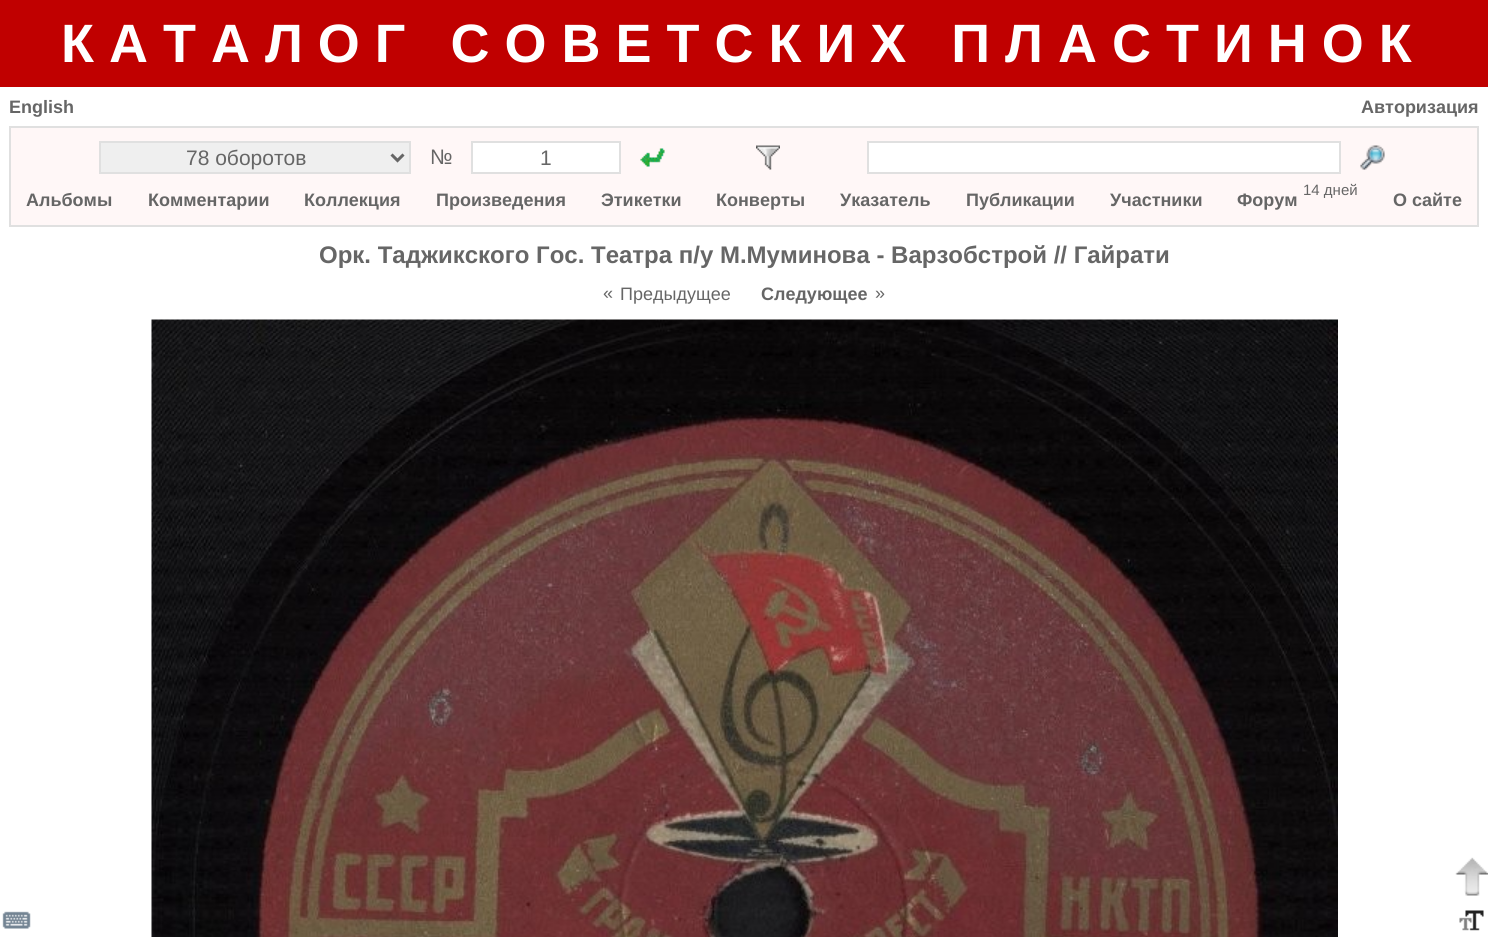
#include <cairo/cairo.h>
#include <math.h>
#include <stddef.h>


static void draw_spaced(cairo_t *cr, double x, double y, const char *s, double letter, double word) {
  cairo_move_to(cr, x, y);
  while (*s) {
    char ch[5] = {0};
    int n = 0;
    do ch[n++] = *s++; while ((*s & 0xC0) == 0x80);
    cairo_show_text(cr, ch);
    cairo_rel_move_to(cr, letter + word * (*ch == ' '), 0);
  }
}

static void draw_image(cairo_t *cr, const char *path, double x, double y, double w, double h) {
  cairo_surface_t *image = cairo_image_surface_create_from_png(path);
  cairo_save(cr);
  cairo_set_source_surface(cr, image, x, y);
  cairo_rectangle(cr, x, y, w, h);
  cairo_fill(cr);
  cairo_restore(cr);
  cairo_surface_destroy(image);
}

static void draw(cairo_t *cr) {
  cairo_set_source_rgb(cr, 1, 1, 1);
  cairo_paint(cr);
  cairo_set_source_rgb(cr, 192 / 255.0, 0, 0);
  cairo_rectangle(cr, 0, 0, 1488, 87);
  cairo_fill(cr);
  cairo_set_source_rgb(cr, 1, 247 / 255.0, 247 / 255.0);
  cairo_rectangle(cr, 10, 127, 1468, 99);
  cairo_fill_preserve(cr);
  cairo_set_source_rgb(cr, 224 / 255.0, 224 / 255.0, 224 / 255.0);
  cairo_stroke(cr);
  cairo_set_source_rgb(cr, 239 / 255.0, 239 / 255.0, 239 / 255.0);
  cairo_rectangle(cr, 100, 142, 310, 31);
  cairo_fill_preserve(cr);
  cairo_set_source_rgb(cr, 224 / 255.0, 224 / 255.0, 224 / 255.0);
  cairo_stroke(cr);
  cairo_new_path(cr);
  cairo_move_to(cr, 391.5, 154.5);
  cairo_line_to(cr, 397.5, 160.5);
  cairo_line_to(cr, 403.5, 154.5);
  cairo_set_source_rgb(cr, 102 / 255.0, 102 / 255.0, 102 / 255.0);
  cairo_set_line_width(cr, 3);
  cairo_stroke(cr);
  cairo_set_source_rgb(cr, 1, 1, 1);
  cairo_rectangle(cr, 472, 142, 148, 31);
  cairo_fill_preserve(cr);
  cairo_set_source_rgb(cr, 224 / 255.0, 224 / 255.0, 224 / 255.0);
  cairo_set_line_width(cr, 2);
  cairo_stroke(cr);
  draw_image(cr, "images/1.png", 640, 148, 25, 19);
  draw_image(cr, "images/2.png", 756, 145, 24, 25);
  cairo_set_source_rgb(cr, 1, 1, 1);
  cairo_rectangle(cr, 868, 142, 472, 31);
  cairo_fill_preserve(cr);
  cairo_set_source_rgb(cr, 224 / 255.0, 224 / 255.0, 224 / 255.0);
  cairo_stroke(cr);
  draw_image(cr, "images/3.png", 1360, 145, 25, 25);
  draw_image(cr, "images/4.png", 151, 319, 1187, 618);
  draw_image(cr, "images/5.png", 1455, 857, 33, 39);
  draw_image(cr, "images/6.png", 2, 911, 29, 18);
  draw_image(cr, "images/7.png", 1459, 910, 25, 21);
  cairo_select_font_face(cr, "Liberation Sans", CAIRO_FONT_SLANT_NORMAL, CAIRO_FONT_WEIGHT_BOLD);
  cairo_set_font_size(cr, 54);
  cairo_set_source_rgb(cr, 1, 1, 1);
  draw_spaced(cr, 61, 62, "КАТАЛОГ СОВЕТСКИХ ПЛАСТИНОК", 15, 0);
  cairo_set_font_size(cr, 18);
  cairo_set_source_rgb(cr, 102 / 255.0, 102 / 255.0, 102 / 255.0);
  cairo_move_to(cr, 9, 113);
  cairo_show_text(cr, "English");
  cairo_move_to(cr, 1361, 113);
  cairo_show_text(cr, "Авторизация");
  cairo_select_font_face(cr, "Liberation Sans", CAIRO_FONT_SLANT_NORMAL, CAIRO_FONT_WEIGHT_NORMAL);
  cairo_set_font_size(cr, 21);
  cairo_move_to(cr, 186, 165);
  cairo_show_text(cr, "78 оборотов");
  cairo_move_to(cr, 430, 164);
  cairo_show_text(cr, "№");
  cairo_move_to(cr, 540, 165);
  cairo_show_text(cr, "1");
  cairo_set_font_size(cr, 15);
  cairo_move_to(cr, 1303, 195);
  cairo_show_text(cr, "14 дней");
  cairo_select_font_face(cr, "Liberation Sans", CAIRO_FONT_SLANT_NORMAL, CAIRO_FONT_WEIGHT_BOLD);
  cairo_set_font_size(cr, 18);
  cairo_move_to(cr, 26, 206);
  cairo_show_text(cr, "Альбомы");
  cairo_move_to(cr, 148, 206);
  cairo_show_text(cr, "Комментарии");
  cairo_move_to(cr, 304, 206);
  cairo_show_text(cr, "Коллекция");
  cairo_move_to(cr, 436, 206);
  cairo_show_text(cr, "Произведения");
  cairo_move_to(cr, 601, 206);
  cairo_show_text(cr, "Этикетки");
  cairo_move_to(cr, 716, 206);
  cairo_show_text(cr, "Конверты");
  cairo_move_to(cr, 840, 206);
  cairo_show_text(cr, "Указатель");
  cairo_move_to(cr, 966, 206);
  cairo_show_text(cr, "Публикации");
  cairo_move_to(cr, 1110, 206);
  cairo_show_text(cr, "Участники");
  cairo_move_to(cr, 1237, 206);
  cairo_show_text(cr, "Форум");
  cairo_move_to(cr, 1393, 206);
  cairo_show_text(cr, "О сайте");
  cairo_set_font_size(cr, 24);
  cairo_move_to(cr, 319, 263);
  cairo_show_text(cr, "Орк. Таджикского Гос. Театра п/у М.Муминова - Варзобстрой // Гайрати");
  cairo_select_font_face(cr, "Liberation Sans", CAIRO_FONT_SLANT_NORMAL, CAIRO_FONT_WEIGHT_NORMAL);
  cairo_set_font_size(cr, 18);
  cairo_move_to(cr, 603, 299);
  cairo_show_text(cr, "«");
  cairo_move_to(cr, 620, 300);
  cairo_show_text(cr, "Предыдущее");
  cairo_select_font_face(cr, "Liberation Sans", CAIRO_FONT_SLANT_NORMAL, CAIRO_FONT_WEIGHT_BOLD);
  cairo_move_to(cr, 761, 300);
  cairo_show_text(cr, "Следующее");
  cairo_select_font_face(cr, "Liberation Sans", CAIRO_FONT_SLANT_NORMAL, CAIRO_FONT_WEIGHT_NORMAL);
  cairo_move_to(cr, 875, 299);
  cairo_show_text(cr, "»");
}

int main(void) {
  cairo_surface_t *surface = cairo_image_surface_create(CAIRO_FORMAT_RGB24, 1488, 937);
  cairo_t *cr = cairo_create(surface);
  cairo_font_options_t *options = cairo_font_options_create();
  cairo_font_options_set_hint_metrics(options, CAIRO_HINT_METRICS_OFF);
  cairo_font_options_set_hint_style(options, CAIRO_HINT_STYLE_NONE);
  cairo_set_font_options(cr, options);
  cairo_set_miter_limit(cr, 4);
  draw(cr);
  cairo_surface_write_to_png(surface, "out.png");
  cairo_font_options_destroy(options);
  cairo_destroy(cr);
  cairo_surface_destroy(surface);
  return 0;
}
